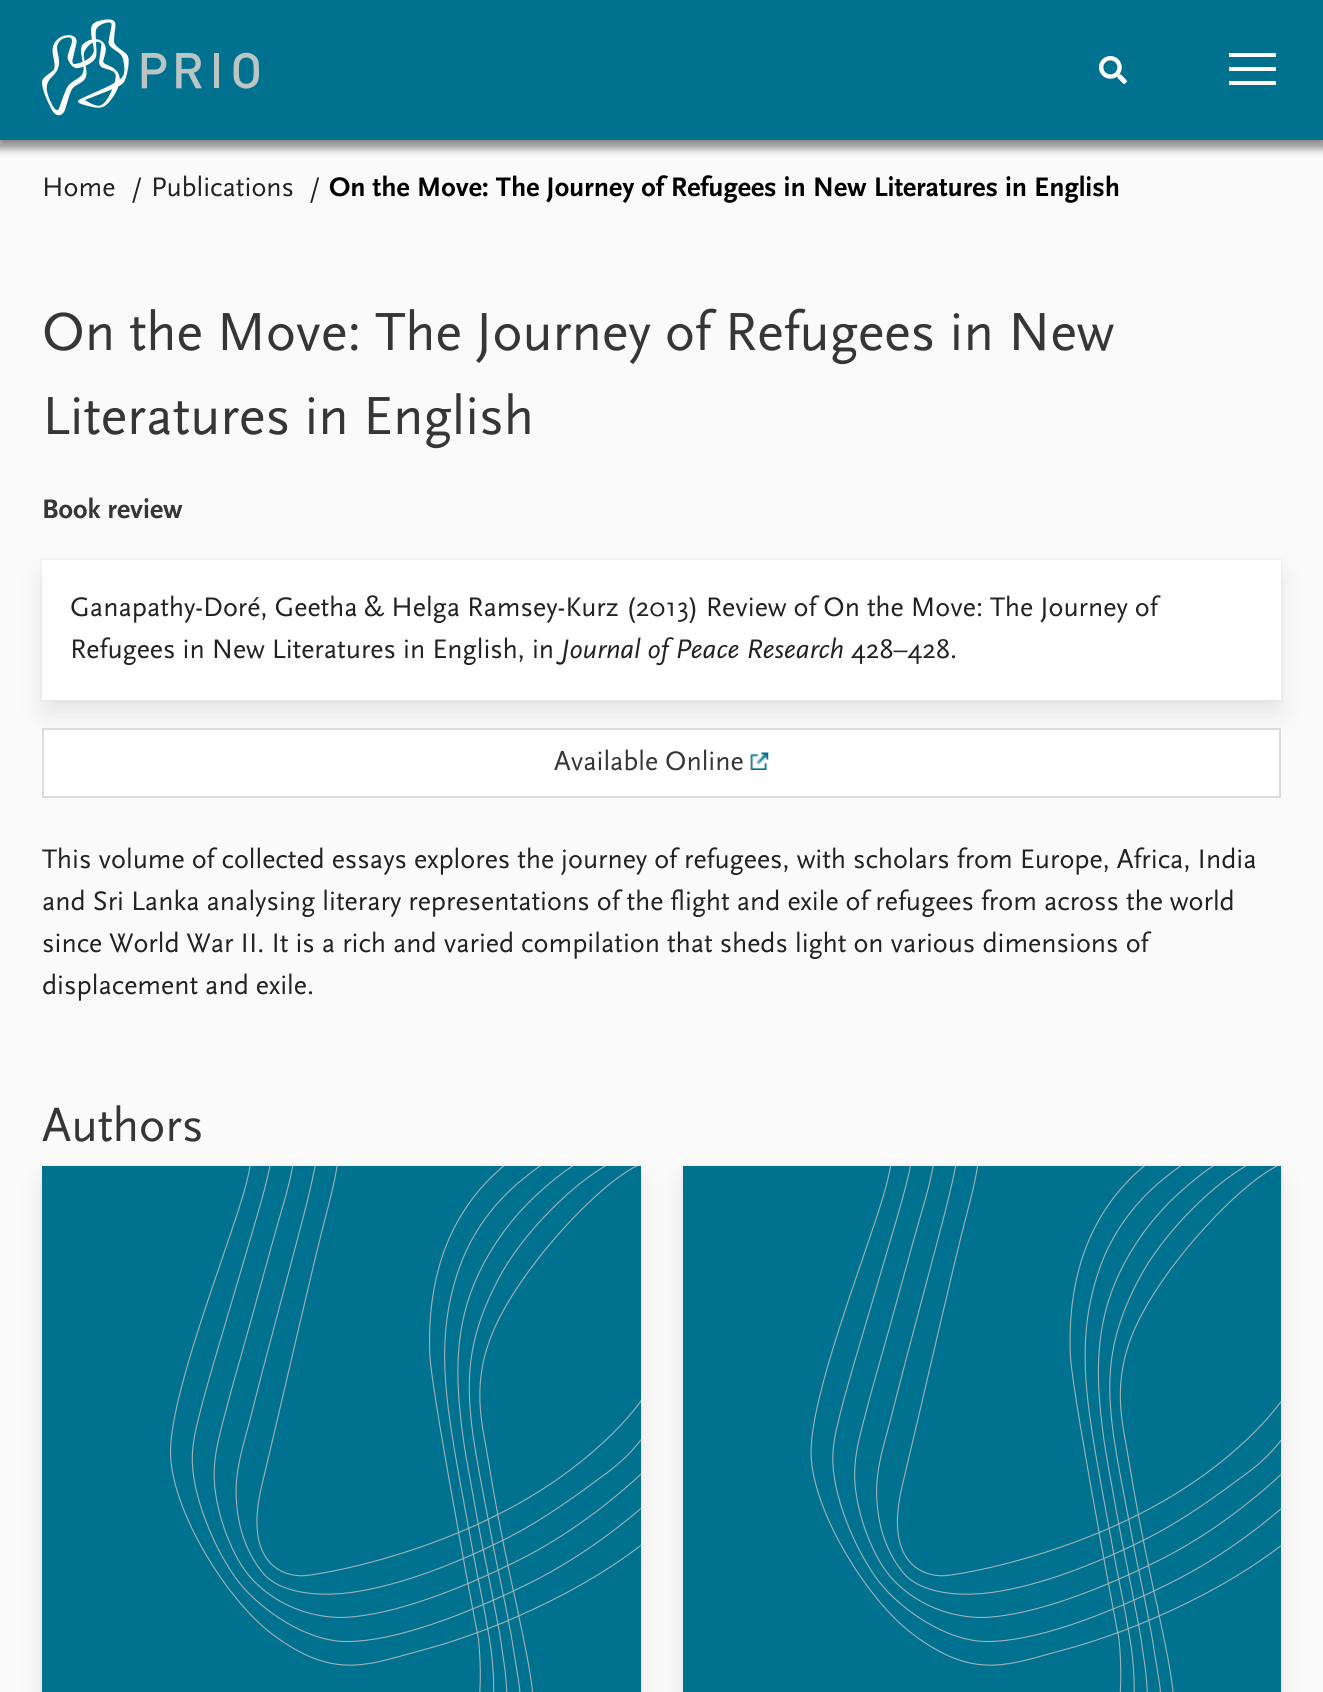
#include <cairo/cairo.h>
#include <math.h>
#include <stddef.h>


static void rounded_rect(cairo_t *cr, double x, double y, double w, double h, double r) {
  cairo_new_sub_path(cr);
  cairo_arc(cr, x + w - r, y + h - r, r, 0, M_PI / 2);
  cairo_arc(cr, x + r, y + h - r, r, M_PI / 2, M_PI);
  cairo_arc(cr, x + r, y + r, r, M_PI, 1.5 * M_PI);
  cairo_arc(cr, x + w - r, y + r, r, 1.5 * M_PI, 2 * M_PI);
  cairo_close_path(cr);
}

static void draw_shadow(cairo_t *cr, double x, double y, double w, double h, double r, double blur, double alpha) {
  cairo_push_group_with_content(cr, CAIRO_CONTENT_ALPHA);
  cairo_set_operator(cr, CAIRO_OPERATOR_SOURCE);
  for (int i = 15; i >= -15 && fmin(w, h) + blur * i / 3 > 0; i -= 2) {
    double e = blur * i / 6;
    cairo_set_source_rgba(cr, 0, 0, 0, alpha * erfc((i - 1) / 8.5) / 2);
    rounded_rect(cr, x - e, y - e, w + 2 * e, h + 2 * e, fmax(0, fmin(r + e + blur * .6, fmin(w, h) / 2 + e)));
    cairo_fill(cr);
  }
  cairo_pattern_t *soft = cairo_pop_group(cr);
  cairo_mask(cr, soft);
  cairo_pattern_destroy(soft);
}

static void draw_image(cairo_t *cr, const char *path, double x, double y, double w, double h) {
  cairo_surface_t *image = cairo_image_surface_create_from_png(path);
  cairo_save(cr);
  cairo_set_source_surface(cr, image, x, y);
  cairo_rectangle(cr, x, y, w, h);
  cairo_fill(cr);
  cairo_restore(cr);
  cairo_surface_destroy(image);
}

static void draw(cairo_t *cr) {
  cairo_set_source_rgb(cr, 250 / 255.0, 250 / 255.0, 250 / 255.0);
  cairo_paint(cr);
  cairo_rectangle(cr, -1, -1, 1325, 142);
  cairo_set_source_rgb(cr, 231 / 255.0, 231 / 255.0, 231 / 255.0);
  cairo_stroke(cr);
  cairo_set_source_rgb(cr, 50 / 255.0, 50 / 255.0, 50 / 255.0);
  draw_shadow(cr, -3, 4, 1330, 145, 0, 4, 0.5);
  cairo_set_source_rgb(cr, 0, 113 / 255.0, 143 / 255.0);
  cairo_rectangle(cr, 0, 0, 1323, 140);
  cairo_fill(cr);
  draw_image(cr, "images/1.png", 42, 19, 217, 97);
  draw_image(cr, "images/2.png", 1099, 56, 28, 28);
  cairo_set_source_rgb(cr, 1, 1, 1);
  cairo_rectangle(cr, 1229, 53, 47, 4);
  cairo_fill(cr);
  cairo_rectangle(cr, 1229, 67, 47, 4);
  cairo_fill(cr);
  cairo_rectangle(cr, 1229, 81, 47, 4);
  cairo_fill(cr);
  cairo_rectangle(cr, 41, 559, 1241, 142);
  cairo_set_source_rgb(cr, 245 / 255.0, 245 / 255.0, 245 / 255.0);
  cairo_stroke(cr);
  cairo_set_source_rgb(cr, 10 / 255.0, 10 / 255.0, 10 / 255.0);
  draw_shadow(cr, 46, 578, 1232, 133, 0, 14, 0.1);
  cairo_set_source_rgb(cr, 1, 1, 1);
  cairo_rectangle(cr, 42, 560, 1239, 140);
  cairo_fill(cr);
  cairo_rectangle(cr, 43, 729, 1237, 68);
  cairo_fill_preserve(cr);
  cairo_set_source_rgb(cr, 219 / 255.0, 219 / 255.0, 219 / 255.0);
  cairo_stroke(cr);
  draw_image(cr, "images/3.png", 750, 752, 19, 18);
  cairo_rectangle(cr, 41, 1165, 600, 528);
  cairo_set_source_rgb(cr, 245 / 255.0, 245 / 255.0, 245 / 255.0);
  cairo_stroke(cr);
  cairo_set_source_rgb(cr, 10 / 255.0, 10 / 255.0, 10 / 255.0);
  draw_shadow(cr, 46, 1183, 591, 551, 0, 14, 0.1);
  cairo_set_source_rgb(cr, 0, 113 / 255.0, 143 / 255.0);
  cairo_rectangle(cr, 42, 1166, 599, 526);
  cairo_fill(cr);
  draw_image(cr, "images/4.png", 170, 1166, 471, 526);
  cairo_rectangle(cr, 682, 1165, 600, 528);
  cairo_set_source_rgb(cr, 245 / 255.0, 245 / 255.0, 245 / 255.0);
  cairo_stroke(cr);
  cairo_set_source_rgb(cr, 10 / 255.0, 10 / 255.0, 10 / 255.0);
  draw_shadow(cr, 686, 1183, 592, 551, 0, 14, 0.1);
  cairo_set_source_rgb(cr, 0, 113 / 255.0, 143 / 255.0);
  cairo_rectangle(cr, 683, 1166, 598, 526);
  cairo_fill(cr);
  draw_image(cr, "images/5.png", 810, 1166, 471, 526);
  cairo_select_font_face(cr, "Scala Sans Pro", CAIRO_FONT_SLANT_NORMAL, CAIRO_FONT_WEIGHT_NORMAL);
  cairo_set_font_size(cr, 28);
  cairo_set_source_rgb(cr, 34 / 255.0, 34 / 255.0, 34 / 255.0);
  cairo_move_to(cr, 42, 196);
  cairo_show_text(cr, "Home");
  cairo_move_to(cr, 131, 196);
  cairo_show_text(cr, "/");
  cairo_move_to(cr, 151, 196);
  cairo_show_text(cr, "Publications");
  cairo_move_to(cr, 309, 196);
  cairo_show_text(cr, "/");
  cairo_select_font_face(cr, "Scala Sans Pro", CAIRO_FONT_SLANT_NORMAL, CAIRO_FONT_WEIGHT_BOLD);
  cairo_set_source_rgb(cr, 0, 0, 0);
  cairo_move_to(cr, 329, 196);
  cairo_show_text(cr, "On the Move: The Journey of Refugees in New Literatures in English");
  cairo_select_font_face(cr, "Scala Sans Pro", CAIRO_FONT_SLANT_NORMAL, CAIRO_FONT_WEIGHT_NORMAL);
  cairo_set_font_size(cr, 56);
  cairo_set_source_rgb(cr, 54 / 255.0, 54 / 255.0, 54 / 255.0);
  cairo_move_to(cr, 42, 350);
  cairo_show_text(cr, "On the Move: The Journey of Refugees in New");
  cairo_move_to(cr, 42, 434);
  cairo_show_text(cr, "Literatures in English");
  cairo_select_font_face(cr, "Scala Sans Pro", CAIRO_FONT_SLANT_NORMAL, CAIRO_FONT_WEIGHT_BOLD);
  cairo_set_font_size(cr, 28);
  cairo_move_to(cr, 42, 518);
  cairo_show_text(cr, "Book review");
  cairo_select_font_face(cr, "Scala Sans Pro", CAIRO_FONT_SLANT_NORMAL, CAIRO_FONT_WEIGHT_NORMAL);
  cairo_set_source_rgb(cr, 34 / 255.0, 34 / 255.0, 34 / 255.0);
  cairo_move_to(cr, 70, 616);
  cairo_show_text(cr, "Ganapathy-Doré, Geetha & Helga Ramsey-Kurz (2013) Review of On the Move: The Journey of");
  cairo_move_to(cr, 70, 658);
  cairo_show_text(cr, "Refugees in New Literatures in English, in");
  cairo_select_font_face(cr, "Scala Sans Pro", CAIRO_FONT_SLANT_ITALIC, CAIRO_FONT_WEIGHT_NORMAL);
  cairo_move_to(cr, 561, 658);
  cairo_show_text(cr, "Journal of Peace Research");
  cairo_select_font_face(cr, "Scala Sans Pro", CAIRO_FONT_SLANT_NORMAL, CAIRO_FONT_WEIGHT_NORMAL);
  cairo_move_to(cr, 851, 658);
  cairo_show_text(cr, "428–428.");
  cairo_set_source_rgb(cr, 54 / 255.0, 54 / 255.0, 54 / 255.0);
  cairo_move_to(cr, 554, 770);
  cairo_show_text(cr, "Available Online");
  cairo_set_source_rgb(cr, 34 / 255.0, 34 / 255.0, 34 / 255.0);
  cairo_move_to(cr, 42, 868);
  cairo_show_text(cr, "This volume of collected essays explores the journey of refugees, with scholars from Europe, Africa, India");
  cairo_move_to(cr, 42, 910);
  cairo_show_text(cr, "and Sri Lanka analysing literary representations of the flight and exile of refugees from across the world");
  cairo_move_to(cr, 42, 952);
  cairo_show_text(cr, "since World War II. It is a rich and varied compilation that sheds light on various dimensions of");
  cairo_move_to(cr, 42, 994);
  cairo_show_text(cr, "displacement and exile.");
  cairo_set_font_size(cr, 49);
  cairo_set_source_rgb(cr, 54 / 255.0, 54 / 255.0, 54 / 255.0);
  cairo_move_to(cr, 42, 1141);
  cairo_show_text(cr, "Authors");
}

int main(void) {
  cairo_surface_t *surface = cairo_image_surface_create(CAIRO_FORMAT_RGB24, 1323, 1692);
  cairo_t *cr = cairo_create(surface);
  cairo_font_options_t *options = cairo_font_options_create();
  cairo_font_options_set_hint_metrics(options, CAIRO_HINT_METRICS_OFF);
  cairo_font_options_set_hint_style(options, CAIRO_HINT_STYLE_NONE);
  cairo_set_font_options(cr, options);
  cairo_set_miter_limit(cr, 4);
  draw(cr);
  cairo_surface_write_to_png(surface, "out.png");
  cairo_font_options_destroy(options);
  cairo_destroy(cr);
  cairo_surface_destroy(surface);
  return 0;
}
